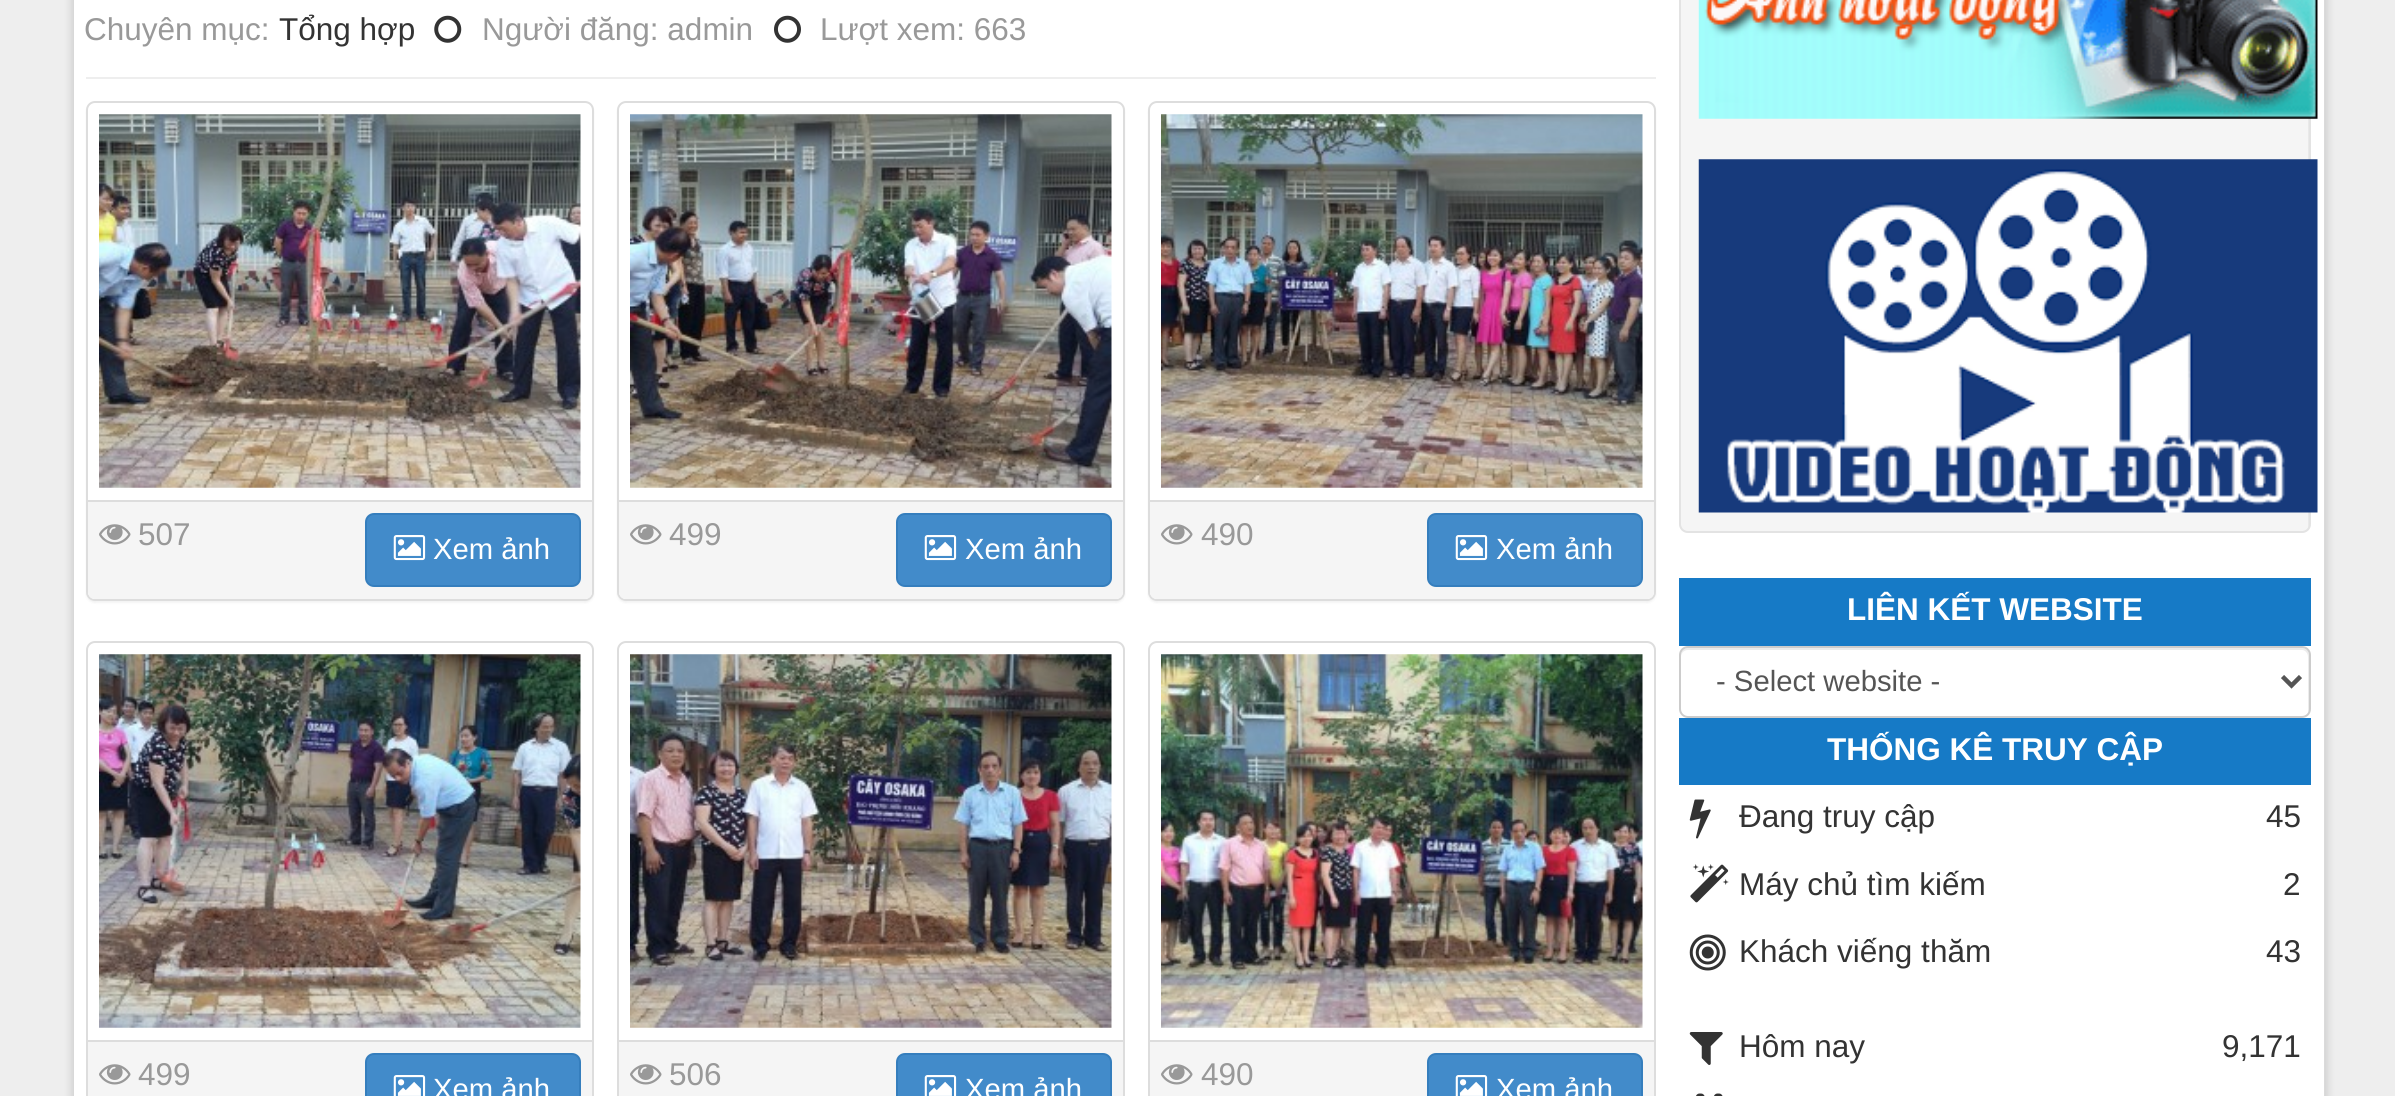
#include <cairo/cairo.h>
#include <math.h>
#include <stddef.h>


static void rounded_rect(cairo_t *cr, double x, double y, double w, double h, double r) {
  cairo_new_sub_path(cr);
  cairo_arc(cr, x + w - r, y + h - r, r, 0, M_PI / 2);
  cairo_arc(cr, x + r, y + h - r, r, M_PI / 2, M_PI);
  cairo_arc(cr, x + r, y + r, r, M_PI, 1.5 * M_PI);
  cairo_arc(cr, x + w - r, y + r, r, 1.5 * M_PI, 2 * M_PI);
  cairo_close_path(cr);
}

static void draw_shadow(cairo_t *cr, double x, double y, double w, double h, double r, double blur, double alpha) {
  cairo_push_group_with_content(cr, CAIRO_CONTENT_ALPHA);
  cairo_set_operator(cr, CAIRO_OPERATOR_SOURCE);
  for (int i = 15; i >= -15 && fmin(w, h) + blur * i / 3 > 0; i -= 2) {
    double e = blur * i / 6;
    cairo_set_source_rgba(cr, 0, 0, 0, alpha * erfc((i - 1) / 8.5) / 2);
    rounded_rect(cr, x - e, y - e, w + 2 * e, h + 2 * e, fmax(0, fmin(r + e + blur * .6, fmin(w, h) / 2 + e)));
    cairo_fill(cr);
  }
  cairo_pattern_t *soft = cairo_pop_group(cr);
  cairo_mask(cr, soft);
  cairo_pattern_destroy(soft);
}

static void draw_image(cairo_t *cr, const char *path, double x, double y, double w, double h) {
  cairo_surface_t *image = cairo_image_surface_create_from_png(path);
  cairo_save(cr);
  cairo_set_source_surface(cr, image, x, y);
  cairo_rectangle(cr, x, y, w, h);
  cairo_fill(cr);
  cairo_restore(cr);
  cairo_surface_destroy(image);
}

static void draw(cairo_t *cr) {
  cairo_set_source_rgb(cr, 238 / 255.0, 238 / 255.0, 238 / 255.0);
  cairo_paint(cr);
  cairo_set_source_rgb(cr, 0, 0, 0);
  draw_shadow(cr, 72, -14, 2255, 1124, 0, 4.5, 0.15);
  cairo_set_source_rgb(cr, 1, 1, 1);
  cairo_rectangle(cr, 74, 0, 2250, 1096);
  cairo_fill(cr);
  cairo_set_source_rgb(cr, 218 / 255.0, 218 / 255.0, 218 / 255.0);
  cairo_rectangle(cr, 2324, 0, 1, 1096);
  cairo_fill(cr);
  cairo_set_source_rgb(cr, 238 / 255.0, 238 / 255.0, 238 / 255.0);
  cairo_rectangle(cr, 86, 77, 1570, 2);
  cairo_fill(cr);
  draw_image(cr, "images/1.png", 434, 15, 28, 28);
  draw_image(cr, "images/2.png", 774, 15, 27, 28);
  cairo_set_source_rgb(cr, 0, 0, 0);
  draw_shadow(cr, 86, 104, 508, 499, 9, 1, 0.05);
  cairo_set_source_rgb(cr, 1, 1, 1);
  rounded_rect(cr, 87, 102, 506, 498, 8);
  cairo_fill_preserve(cr);
  cairo_set_source_rgb(cr, 221 / 255.0, 221 / 255.0, 221 / 255.0);
  cairo_stroke(cr);
  draw_image(cr, "images/3.png", 99, 114, 482, 374);
  cairo_set_source_rgb(cr, 245 / 255.0, 245 / 255.0, 245 / 255.0);
  cairo_new_path(cr);
  cairo_move_to(cr, 88, 500);
  cairo_line_to(cr, 592, 500);
  cairo_line_to(cr, 592, 592);
  cairo_curve_to(cr, 592, 596, 589, 599, 585, 599);
  cairo_line_to(cr, 95, 599);
  cairo_curve_to(cr, 91, 599, 88, 596, 88, 592);
  cairo_close_path(cr);
  cairo_fill(cr);
  cairo_set_source_rgb(cr, 221 / 255.0, 221 / 255.0, 221 / 255.0);
  cairo_rectangle(cr, 88, 500, 504, 2);
  cairo_fill(cr);
  draw_image(cr, "images/4.png", 99, 524, 32, 21);
  cairo_set_source_rgb(cr, 66 / 255.0, 139 / 255.0, 202 / 255.0);
  rounded_rect(cr, 366, 514, 214, 72, 8);
  cairo_fill_preserve(cr);
  cairo_set_source_rgb(cr, 53 / 255.0, 126 / 255.0, 189 / 255.0);
  cairo_stroke(cr);
  draw_image(cr, "images/5.png", 393, 535, 33, 26);
  cairo_set_source_rgb(cr, 0, 0, 0);
  draw_shadow(cr, 617, 104, 508, 499, 9, 1, 0.05);
  cairo_set_source_rgb(cr, 1, 1, 1);
  rounded_rect(cr, 618, 102, 506, 498, 8);
  cairo_fill_preserve(cr);
  cairo_set_source_rgb(cr, 221 / 255.0, 221 / 255.0, 221 / 255.0);
  cairo_stroke(cr);
  draw_image(cr, "images/6.png", 630, 114, 482, 374);
  cairo_set_source_rgb(cr, 245 / 255.0, 245 / 255.0, 245 / 255.0);
  cairo_new_path(cr);
  cairo_move_to(cr, 619, 500);
  cairo_line_to(cr, 1123, 500);
  cairo_line_to(cr, 1123, 592);
  cairo_curve_to(cr, 1123, 596, 1120, 599, 1116, 599);
  cairo_line_to(cr, 626, 599);
  cairo_curve_to(cr, 622, 599, 619, 596, 619, 592);
  cairo_close_path(cr);
  cairo_fill(cr);
  cairo_set_source_rgb(cr, 221 / 255.0, 221 / 255.0, 221 / 255.0);
  cairo_rectangle(cr, 619, 500, 504, 2);
  cairo_fill(cr);
  draw_image(cr, "images/4.png", 630, 524, 32, 21);
  cairo_set_source_rgb(cr, 66 / 255.0, 139 / 255.0, 202 / 255.0);
  rounded_rect(cr, 897, 514, 214, 72, 8);
  cairo_fill_preserve(cr);
  cairo_set_source_rgb(cr, 53 / 255.0, 126 / 255.0, 189 / 255.0);
  cairo_stroke(cr);
  draw_image(cr, "images/5.png", 924, 535, 33, 26);
  cairo_set_source_rgb(cr, 0, 0, 0);
  draw_shadow(cr, 1148, 104, 508, 499, 9, 1, 0.05);
  cairo_set_source_rgb(cr, 1, 1, 1);
  rounded_rect(cr, 1149, 102, 506, 498, 8);
  cairo_fill_preserve(cr);
  cairo_set_source_rgb(cr, 221 / 255.0, 221 / 255.0, 221 / 255.0);
  cairo_stroke(cr);
  draw_image(cr, "images/7.png", 1161, 114, 482, 374);
  cairo_set_source_rgb(cr, 245 / 255.0, 245 / 255.0, 245 / 255.0);
  cairo_new_path(cr);
  cairo_move_to(cr, 1150, 500);
  cairo_line_to(cr, 1654, 500);
  cairo_line_to(cr, 1654, 592);
  cairo_curve_to(cr, 1654, 596, 1651, 599, 1647, 599);
  cairo_line_to(cr, 1157, 599);
  cairo_curve_to(cr, 1153, 599, 1150, 596, 1150, 592);
  cairo_close_path(cr);
  cairo_fill(cr);
  cairo_set_source_rgb(cr, 221 / 255.0, 221 / 255.0, 221 / 255.0);
  cairo_rectangle(cr, 1150, 500, 504, 2);
  cairo_fill(cr);
  draw_image(cr, "images/4.png", 1161, 524, 32, 21);
  cairo_set_source_rgb(cr, 66 / 255.0, 139 / 255.0, 202 / 255.0);
  rounded_rect(cr, 1428, 514, 214, 72, 8);
  cairo_fill_preserve(cr);
  cairo_set_source_rgb(cr, 53 / 255.0, 126 / 255.0, 189 / 255.0);
  cairo_stroke(cr);
  draw_image(cr, "images/5.png", 1455, 535, 33, 26);
  rounded_rect(cr, 87, 642, 506, 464, 8);
  cairo_set_source_rgb(cr, 221 / 255.0, 221 / 255.0, 221 / 255.0);
  cairo_stroke(cr);
  draw_image(cr, "images/8.png", 99, 654, 482, 374);
  cairo_set_source_rgb(cr, 245 / 255.0, 245 / 255.0, 245 / 255.0);
  cairo_rectangle(cr, 88, 1042, 504, 54);
  cairo_fill(cr);
  cairo_set_source_rgb(cr, 221 / 255.0, 221 / 255.0, 221 / 255.0);
  cairo_rectangle(cr, 88, 1040, 504, 2);
  cairo_fill(cr);
  draw_image(cr, "images/4.png", 99, 1064, 32, 21);
  cairo_set_source_rgb(cr, 66 / 255.0, 139 / 255.0, 202 / 255.0);
  rounded_rect(cr, 366, 1054, 214, 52, 8);
  cairo_fill_preserve(cr);
  cairo_set_source_rgb(cr, 53 / 255.0, 126 / 255.0, 189 / 255.0);
  cairo_stroke(cr);
  draw_image(cr, "images/9.png", 393, 1075, 33, 21);
  rounded_rect(cr, 618, 642, 506, 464, 8);
  cairo_set_source_rgb(cr, 221 / 255.0, 221 / 255.0, 221 / 255.0);
  cairo_stroke(cr);
  draw_image(cr, "images/10.png", 630, 654, 482, 374);
  cairo_set_source_rgb(cr, 245 / 255.0, 245 / 255.0, 245 / 255.0);
  cairo_rectangle(cr, 619, 1042, 504, 54);
  cairo_fill(cr);
  cairo_set_source_rgb(cr, 221 / 255.0, 221 / 255.0, 221 / 255.0);
  cairo_rectangle(cr, 619, 1040, 504, 2);
  cairo_fill(cr);
  draw_image(cr, "images/4.png", 630, 1064, 32, 21);
  cairo_set_source_rgb(cr, 66 / 255.0, 139 / 255.0, 202 / 255.0);
  rounded_rect(cr, 897, 1054, 214, 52, 8);
  cairo_fill_preserve(cr);
  cairo_set_source_rgb(cr, 53 / 255.0, 126 / 255.0, 189 / 255.0);
  cairo_stroke(cr);
  draw_image(cr, "images/9.png", 924, 1075, 33, 21);
  rounded_rect(cr, 1149, 642, 506, 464, 8);
  cairo_set_source_rgb(cr, 221 / 255.0, 221 / 255.0, 221 / 255.0);
  cairo_stroke(cr);
  draw_image(cr, "images/11.png", 1161, 654, 482, 374);
  cairo_set_source_rgb(cr, 245 / 255.0, 245 / 255.0, 245 / 255.0);
  cairo_rectangle(cr, 1150, 1042, 504, 54);
  cairo_fill(cr);
  cairo_set_source_rgb(cr, 221 / 255.0, 221 / 255.0, 221 / 255.0);
  cairo_rectangle(cr, 1150, 1040, 504, 2);
  cairo_fill(cr);
  draw_image(cr, "images/4.png", 1161, 1064, 32, 21);
  cairo_set_source_rgb(cr, 66 / 255.0, 139 / 255.0, 202 / 255.0);
  rounded_rect(cr, 1428, 1054, 214, 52, 8);
  cairo_fill_preserve(cr);
  cairo_set_source_rgb(cr, 53 / 255.0, 126 / 255.0, 189 / 255.0);
  cairo_stroke(cr);
  draw_image(cr, "images/9.png", 1455, 1075, 33, 21);
  cairo_set_source_rgb(cr, 245 / 255.0, 245 / 255.0, 245 / 255.0);
  rounded_rect(cr, 1679, -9, 632, 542, 9);
  cairo_fill(cr);
  cairo_set_source_rgb(cr, 233 / 255.0, 233 / 255.0, 233 / 255.0);
  cairo_new_path(cr);
  cairo_move_to(cr, 1688, -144);
  cairo_line_to(cr, 2302, -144);
  cairo_curve_to(cr, 2305, -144, 2308, -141, 2308, -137);
  cairo_line_to(cr, 2308, 528);
  cairo_curve_to(cr, 2309, 527, 2309, 525, 2309, 524);
  cairo_line_to(cr, 2309, -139);
  cairo_curve_to(cr, 2309, -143, 2306, -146, 2302, -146);
  cairo_line_to(cr, 1688, -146);
  cairo_curve_to(cr, 1684, -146, 1681, -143, 1681, -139);
  cairo_line_to(cr, 1681, -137);
  cairo_curve_to(cr, 1681, -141, 1684, -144, 1688, -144);
  cairo_close_path(cr);
  cairo_fill(cr);
  rounded_rect(cr, 1680, -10, 630, 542, 8);
  cairo_set_source_rgb(cr, 227 / 255.0, 227 / 255.0, 227 / 255.0);
  cairo_stroke(cr);
  draw_image(cr, "images/12.png", 1698, 0, 620, 119);
  draw_image(cr, "images/13.png", 1698, 159, 620, 354);
  cairo_set_source_rgb(cr, 22 / 255.0, 122 / 255.0, 198 / 255.0);
  cairo_rectangle(cr, 1679, 578, 632, 68);
  cairo_fill(cr);
  cairo_set_source_rgb(cr, 236 / 255.0, 236 / 255.0, 236 / 255.0);
  cairo_new_path(cr);
  cairo_move_to(cr, 1688, 650);
  cairo_line_to(cr, 2302, 650);
  cairo_curve_to(cr, 2305, 650, 2308, 653, 2308, 657);
  cairo_line_to(cr, 2308, 713);
  cairo_curve_to(cr, 2309, 712, 2309, 710, 2309, 709);
  cairo_line_to(cr, 2309, 655);
  cairo_curve_to(cr, 2309, 651, 2306, 648, 2302, 648);
  cairo_line_to(cr, 1688, 648);
  cairo_curve_to(cr, 1684, 648, 1681, 651, 1681, 655);
  cairo_line_to(cr, 1681, 657);
  cairo_curve_to(cr, 1681, 653, 1684, 650, 1688, 650);
  cairo_close_path(cr);
  cairo_fill(cr);
  rounded_rect(cr, 1680, 647, 630, 70, 8);
  cairo_set_source_rgb(cr, 204 / 255.0, 204 / 255.0, 204 / 255.0);
  cairo_stroke(cr);
  cairo_new_path(cr);
  cairo_move_to(cr, 2282.5, 676.5);
  cairo_line_to(cr, 2291.5, 685.5);
  cairo_line_to(cr, 2300.5, 676.5);
  cairo_set_source_rgb(cr, 85 / 255.0, 85 / 255.0, 85 / 255.0);
  cairo_set_line_width(cr, 4.5);
  cairo_stroke(cr);
  cairo_set_source_rgb(cr, 22 / 255.0, 122 / 255.0, 198 / 255.0);
  cairo_rectangle(cr, 1679, 718, 632, 67);
  cairo_fill(cr);
  draw_image(cr, "images/14.png", 1689, 799, 22, 40);
  draw_image(cr, "images/15.png", 1690, 864, 39, 39);
  draw_image(cr, "images/16.png", 1689, 934, 37, 37);
  draw_image(cr, "images/17.png", 1689, 1032, 34, 33);
  draw_image(cr, "images/18.png", 1696, 1093, 27, 3);
  cairo_select_font_face(cr, "Liberation Sans", CAIRO_FONT_SLANT_NORMAL, CAIRO_FONT_WEIGHT_NORMAL);
  cairo_set_font_size(cr, 31.5);
  cairo_set_source_rgb(cr, 153 / 255.0, 153 / 255.0, 153 / 255.0);
  cairo_move_to(cr, 84, 40);
  cairo_show_text(cr, "Chuyên mục:");
  cairo_set_source_rgb(cr, 51 / 255.0, 51 / 255.0, 51 / 255.0);
  cairo_move_to(cr, 279, 40);
  cairo_show_text(cr, "Tổng hợp");
  cairo_set_source_rgb(cr, 153 / 255.0, 153 / 255.0, 153 / 255.0);
  cairo_move_to(cr, 482, 40);
  cairo_show_text(cr, "Người đăng: admin");
  cairo_move_to(cr, 820, 40);
  cairo_show_text(cr, "Lượt xem: 663");
  cairo_move_to(cr, 138, 545);
  cairo_show_text(cr, "507");
  cairo_set_font_size(cr, 29.25);
  cairo_set_source_rgb(cr, 1, 1, 1);
  cairo_move_to(cr, 433, 559);
  cairo_show_text(cr, "Xem ảnh");
  cairo_set_font_size(cr, 31.5);
  cairo_set_source_rgb(cr, 153 / 255.0, 153 / 255.0, 153 / 255.0);
  cairo_move_to(cr, 669, 545);
  cairo_show_text(cr, "499");
  cairo_set_font_size(cr, 29.25);
  cairo_set_source_rgb(cr, 1, 1, 1);
  cairo_move_to(cr, 965, 559);
  cairo_show_text(cr, "Xem ảnh");
  cairo_set_font_size(cr, 31.5);
  cairo_set_source_rgb(cr, 153 / 255.0, 153 / 255.0, 153 / 255.0);
  cairo_move_to(cr, 1201, 545);
  cairo_show_text(cr, "490");
  cairo_set_font_size(cr, 29.25);
  cairo_set_source_rgb(cr, 1, 1, 1);
  cairo_move_to(cr, 1496, 559);
  cairo_show_text(cr, "Xem ảnh");
  cairo_set_font_size(cr, 31.5);
  cairo_set_source_rgb(cr, 153 / 255.0, 153 / 255.0, 153 / 255.0);
  cairo_move_to(cr, 138, 1085);
  cairo_show_text(cr, "499");
  cairo_set_font_size(cr, 29.25);
  cairo_set_source_rgb(cr, 1, 1, 1);
  cairo_move_to(cr, 433, 1099);
  cairo_show_text(cr, "Xem ảnh");
  cairo_set_font_size(cr, 31.5);
  cairo_set_source_rgb(cr, 153 / 255.0, 153 / 255.0, 153 / 255.0);
  cairo_move_to(cr, 669, 1085);
  cairo_show_text(cr, "506");
  cairo_set_font_size(cr, 29.25);
  cairo_set_source_rgb(cr, 1, 1, 1);
  cairo_move_to(cr, 965, 1099);
  cairo_show_text(cr, "Xem ảnh");
  cairo_set_font_size(cr, 31.5);
  cairo_set_source_rgb(cr, 153 / 255.0, 153 / 255.0, 153 / 255.0);
  cairo_move_to(cr, 1201, 1085);
  cairo_show_text(cr, "490");
  cairo_set_font_size(cr, 29.25);
  cairo_set_source_rgb(cr, 1, 1, 1);
  cairo_move_to(cr, 1496, 1099);
  cairo_show_text(cr, "Xem ảnh");
  cairo_select_font_face(cr, "Liberation Sans", CAIRO_FONT_SLANT_NORMAL, CAIRO_FONT_WEIGHT_BOLD);
  cairo_set_font_size(cr, 31.5);
  cairo_move_to(cr, 1847, 620);
  cairo_show_text(cr, "LIÊN KẾT WEBSITE");
  cairo_select_font_face(cr, "Liberation Sans", CAIRO_FONT_SLANT_NORMAL, CAIRO_FONT_WEIGHT_NORMAL);
  cairo_set_font_size(cr, 29.25);
  cairo_set_source_rgb(cr, 85 / 255.0, 85 / 255.0, 85 / 255.0);
  cairo_move_to(cr, 1716, 691);
  cairo_show_text(cr, "- Select website -");
  cairo_select_font_face(cr, "Liberation Sans", CAIRO_FONT_SLANT_NORMAL, CAIRO_FONT_WEIGHT_BOLD);
  cairo_set_font_size(cr, 31.5);
  cairo_set_source_rgb(cr, 1, 1, 1);
  cairo_move_to(cr, 1827, 760);
  cairo_show_text(cr, "THỐNG KÊ TRUY CẬP");
  cairo_select_font_face(cr, "Liberation Sans", CAIRO_FONT_SLANT_NORMAL, CAIRO_FONT_WEIGHT_NORMAL);
  cairo_set_source_rgb(cr, 51 / 255.0, 51 / 255.0, 51 / 255.0);
  cairo_move_to(cr, 1739, 827);
  cairo_show_text(cr, "Đang truy cập");
  cairo_move_to(cr, 2266, 827);
  cairo_show_text(cr, "45");
  cairo_move_to(cr, 1739, 895);
  cairo_show_text(cr, "Máy chủ tìm kiếm");
  cairo_move_to(cr, 2283, 895);
  cairo_show_text(cr, "2");
  cairo_move_to(cr, 1739, 962);
  cairo_show_text(cr, "Khách viếng thăm");
  cairo_move_to(cr, 2266, 962);
  cairo_show_text(cr, "43");
  cairo_move_to(cr, 1739, 1057);
  cairo_show_text(cr, "Hôm nay");
  cairo_move_to(cr, 2222, 1057);
  cairo_show_text(cr, "9,171");
}

int main(void) {
  cairo_surface_t *surface = cairo_image_surface_create(CAIRO_FORMAT_RGB24, 2395, 1096);
  cairo_t *cr = cairo_create(surface);
  cairo_font_options_t *options = cairo_font_options_create();
  cairo_font_options_set_hint_metrics(options, CAIRO_HINT_METRICS_OFF);
  cairo_font_options_set_hint_style(options, CAIRO_HINT_STYLE_NONE);
  cairo_set_font_options(cr, options);
  cairo_set_miter_limit(cr, 4);
  draw(cr);
  cairo_surface_write_to_png(surface, "out.png");
  cairo_font_options_destroy(options);
  cairo_destroy(cr);
  cairo_surface_destroy(surface);
  return 0;
}
